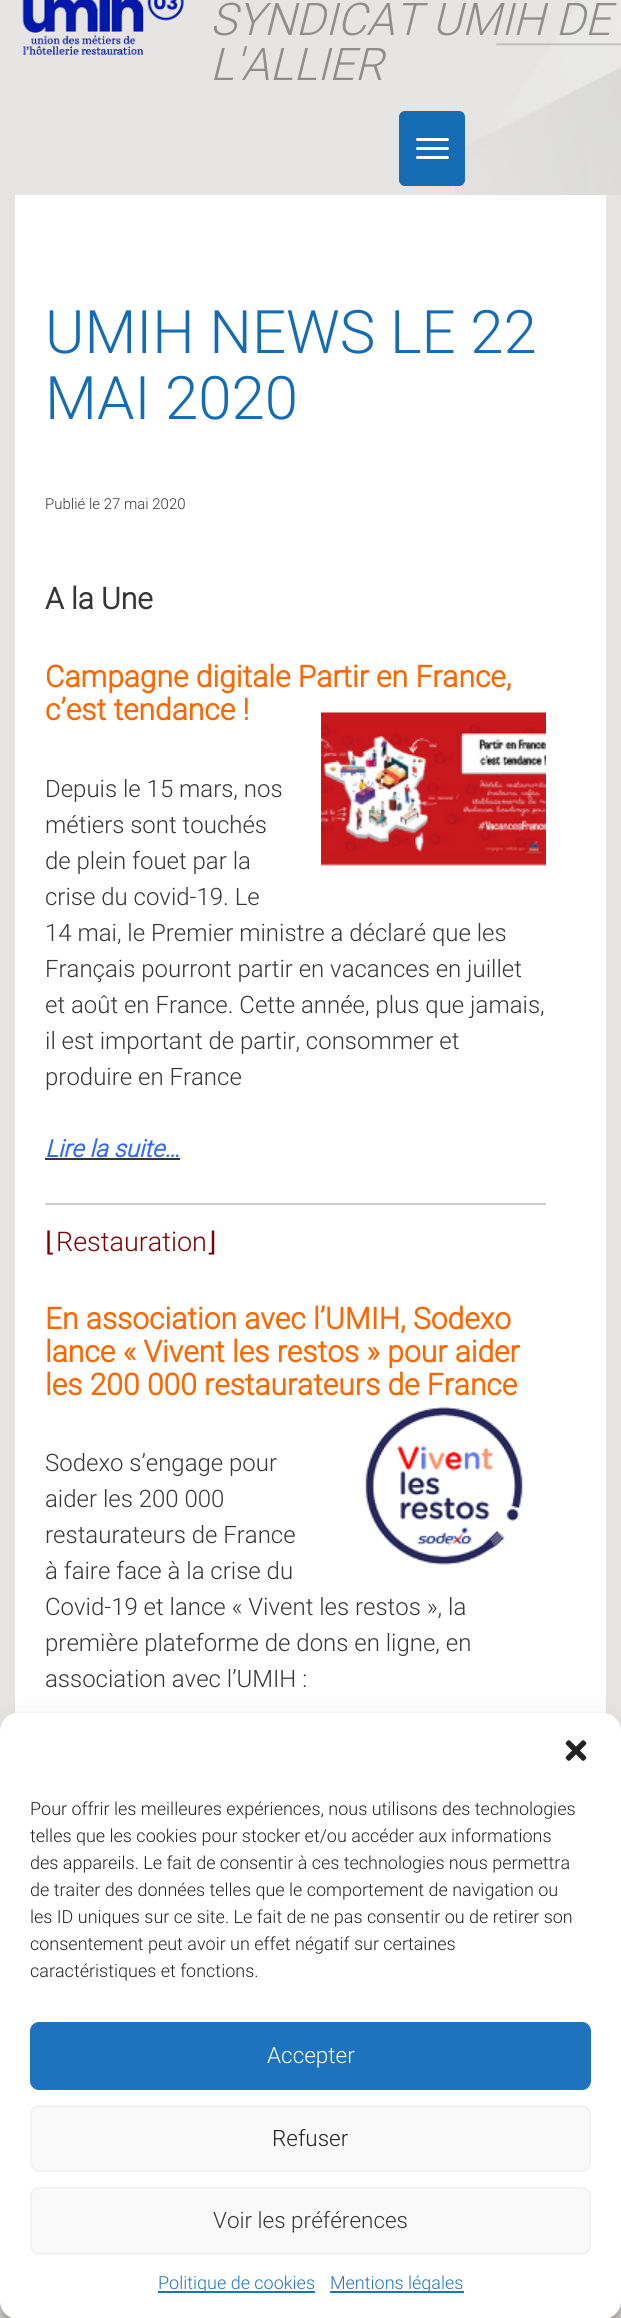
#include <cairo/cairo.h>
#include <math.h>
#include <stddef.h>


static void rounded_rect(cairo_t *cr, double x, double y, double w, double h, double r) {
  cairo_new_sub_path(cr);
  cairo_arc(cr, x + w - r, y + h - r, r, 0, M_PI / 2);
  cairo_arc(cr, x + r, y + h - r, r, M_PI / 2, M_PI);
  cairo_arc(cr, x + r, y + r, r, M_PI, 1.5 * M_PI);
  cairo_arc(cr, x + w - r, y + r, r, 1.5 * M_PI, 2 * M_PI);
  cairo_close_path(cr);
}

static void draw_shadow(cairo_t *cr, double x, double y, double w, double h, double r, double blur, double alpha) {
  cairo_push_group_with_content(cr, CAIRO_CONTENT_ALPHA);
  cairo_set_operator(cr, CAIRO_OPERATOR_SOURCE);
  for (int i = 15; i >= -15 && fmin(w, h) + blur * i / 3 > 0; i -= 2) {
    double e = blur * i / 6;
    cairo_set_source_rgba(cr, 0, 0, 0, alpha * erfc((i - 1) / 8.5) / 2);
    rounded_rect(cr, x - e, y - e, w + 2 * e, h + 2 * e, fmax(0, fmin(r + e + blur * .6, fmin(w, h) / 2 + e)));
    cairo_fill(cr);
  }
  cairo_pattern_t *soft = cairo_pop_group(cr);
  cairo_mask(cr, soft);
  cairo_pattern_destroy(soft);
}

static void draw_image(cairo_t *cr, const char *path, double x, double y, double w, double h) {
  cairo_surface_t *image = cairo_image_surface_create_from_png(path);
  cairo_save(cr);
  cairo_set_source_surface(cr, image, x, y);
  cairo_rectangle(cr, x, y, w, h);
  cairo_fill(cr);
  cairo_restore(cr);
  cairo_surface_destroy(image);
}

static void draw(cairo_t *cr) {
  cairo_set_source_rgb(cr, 230 / 255.0, 229 / 255.0, 227 / 255.0);
  cairo_paint(cr);
  draw_image(cr, "images/1.png", 455, 0, 166, 195);
  draw_image(cr, "images/2.png", 22, 0, 162, 55);
  cairo_set_source_rgb(cr, 20 / 255.0, 108 / 255.0, 180 / 255.0);
  rounded_rect(cr, 400, 112, 64, 73, 5);
  cairo_fill_preserve(cr);
  cairo_stroke(cr);
  cairo_set_source_rgb(cr, 1, 1, 1);
  rounded_rect(cr, 416, 138, 33, 3, 1.5);
  cairo_fill(cr);
  rounded_rect(cr, 416, 147, 33, 3, 1.5);
  cairo_fill(cr);
  rounded_rect(cr, 416, 156, 33, 3, 1.5);
  cairo_fill(cr);
  cairo_rectangle(cr, 15, 195, 591, 1519);
  cairo_fill(cr);
  draw_image(cr, "images/3.png", 321, 711, 225, 155);
  cairo_set_source_rgb(cr, 54 / 255.0, 54 / 255.0, 54 / 255.0);
  cairo_rectangle(cr, 45, 1158, 135, 2);
  cairo_fill(cr);
  cairo_set_source_rgb(cr, 204 / 255.0, 204 / 255.0, 204 / 255.0);
  cairo_rectangle(cr, 45, 1203, 501, 2);
  cairo_fill(cr);
  draw_image(cr, "images/4.png", 365, 1406, 158, 159);
  cairo_set_source_rgb(cr, 0, 0, 0);
  draw_shadow(cr, 0, 1722, 621, 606, 18, 4.5, 0.23);
  draw_shadow(cr, 0, 1728, 621, 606, 18, 15, 0.19);
  cairo_set_source_rgb(cr, 1, 1, 1);
  rounded_rect(cr, 0, 1713, 621, 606, 18);
  cairo_fill(cr);
  draw_image(cr, "images/5.png", 565, 1740, 22, 21);
  cairo_set_source_rgb(cr, 30 / 255.0, 115 / 255.0, 190 / 255.0);
  rounded_rect(cr, 31, 2023, 559, 66, 8);
  cairo_fill_preserve(cr);
  cairo_stroke(cr);
  cairo_set_source_rgb(cr, 249 / 255.0, 249 / 255.0, 249 / 255.0);
  rounded_rect(cr, 31, 2106, 559, 65, 8);
  cairo_fill_preserve(cr);
  cairo_set_source_rgb(cr, 242 / 255.0, 242 / 255.0, 242 / 255.0);
  cairo_stroke(cr);
  cairo_set_source_rgb(cr, 249 / 255.0, 249 / 255.0, 249 / 255.0);
  rounded_rect(cr, 31, 2188, 559, 66, 8);
  cairo_fill_preserve(cr);
  cairo_set_source_rgb(cr, 242 / 255.0, 242 / 255.0, 242 / 255.0);
  cairo_stroke(cr);
  cairo_set_source_rgb(cr, 30 / 255.0, 115 / 255.0, 190 / 255.0);
  cairo_rectangle(cr, 158, 2291, 157, 2);
  cairo_fill(cr);
  cairo_rectangle(cr, 330, 2291, 134, 2);
  cairo_fill(cr);
  cairo_select_font_face(cr, "Roboto Light", CAIRO_FONT_SLANT_ITALIC, CAIRO_FONT_WEIGHT_NORMAL);
  cairo_set_font_size(cr, 45);
  cairo_set_source_rgb(cr, 144 / 255.0, 142 / 255.0, 140 / 255.0);
  cairo_move_to(cr, 210, 35);
  cairo_show_text(cr, "SYNDICAT UMIH DE");
  cairo_move_to(cr, 210, 80);
  cairo_show_text(cr, "L'ALLIER");
  cairo_select_font_face(cr, "Roboto Light", CAIRO_FONT_SLANT_NORMAL, CAIRO_FONT_WEIGHT_NORMAL);
  cairo_set_font_size(cr, 60);
  cairo_set_source_rgb(cr, 20 / 255.0, 108 / 255.0, 180 / 255.0);
  cairo_move_to(cr, 45, 353);
  cairo_show_text(cr, "UMIH NEWS LE 22");
  cairo_move_to(cr, 45, 419);
  cairo_show_text(cr, "MAI 2020");
  cairo_set_font_size(cr, 15);
  cairo_set_source_rgb(cr, 54 / 255.0, 54 / 255.0, 54 / 255.0);
  cairo_move_to(cr, 45, 509);
  cairo_show_text(cr, "Publié le 27 mai 2020");
  cairo_select_font_face(cr, "Roboto", CAIRO_FONT_SLANT_NORMAL, CAIRO_FONT_WEIGHT_BOLD);
  cairo_set_font_size(cr, 30);
  cairo_move_to(cr, 45, 609);
  cairo_show_text(cr, "A la Une");
  cairo_set_source_rgb(cr, 1, 102 / 255.0, 0);
  cairo_move_to(cr, 45, 687);
  cairo_show_text(cr, "Campagne digitale Partir en France,");
  cairo_move_to(cr, 45, 720);
  cairo_show_text(cr, "c’est tendance !");
  cairo_select_font_face(cr, "Roboto Light", CAIRO_FONT_SLANT_NORMAL, CAIRO_FONT_WEIGHT_NORMAL);
  cairo_set_font_size(cr, 24);
  cairo_set_source_rgb(cr, 54 / 255.0, 54 / 255.0, 54 / 255.0);
  cairo_move_to(cr, 45, 797);
  cairo_show_text(cr, "Depuis le 15 mars, nos");
  cairo_move_to(cr, 45, 833);
  cairo_show_text(cr, "métiers sont touchés");
  cairo_move_to(cr, 45, 869);
  cairo_show_text(cr, "de plein fouet par la");
  cairo_move_to(cr, 45, 905);
  cairo_show_text(cr, "crise du covid-19. Le");
  cairo_move_to(cr, 45, 941);
  cairo_show_text(cr, "14 mai, le Premier ministre a déclaré que les");
  cairo_move_to(cr, 45, 977);
  cairo_show_text(cr, "Français pourront partir en vacances en juillet");
  cairo_move_to(cr, 45, 1013);
  cairo_show_text(cr, "et août en France. Cette année, plus que jamais,");
  cairo_move_to(cr, 45, 1049);
  cairo_show_text(cr, "il est important de partir, consommer et");
  cairo_move_to(cr, 45, 1085);
  cairo_show_text(cr, "produire en France");
  cairo_select_font_face(cr, "Roboto", CAIRO_FONT_SLANT_ITALIC, CAIRO_FONT_WEIGHT_BOLD);
  cairo_set_source_rgb(cr, 51 / 255.0, 102 / 255.0, 1);
  cairo_move_to(cr, 45, 1157);
  cairo_show_text(cr, "Lire la suite…");
  cairo_select_font_face(cr, "DejaVu Sans", CAIRO_FONT_SLANT_NORMAL, CAIRO_FONT_WEIGHT_NORMAL);
  cairo_set_font_size(cr, 27);
  cairo_set_source_rgb(cr, 128 / 255.0, 0, 0);
  cairo_move_to(cr, 45, 1251);
  cairo_show_text(cr, "⌊");
  cairo_select_font_face(cr, "Roboto Light", CAIRO_FONT_SLANT_NORMAL, CAIRO_FONT_WEIGHT_NORMAL);
  cairo_move_to(cr, 56, 1251);
  cairo_show_text(cr, "Restauration");
  cairo_select_font_face(cr, "DejaVu Sans", CAIRO_FONT_SLANT_NORMAL, CAIRO_FONT_WEIGHT_NORMAL);
  cairo_move_to(cr, 206, 1251);
  cairo_show_text(cr, "⌋");
  cairo_select_font_face(cr, "Roboto", CAIRO_FONT_SLANT_NORMAL, CAIRO_FONT_WEIGHT_BOLD);
  cairo_set_font_size(cr, 30);
  cairo_set_source_rgb(cr, 1, 102 / 255.0, 0);
  cairo_move_to(cr, 45, 1329);
  cairo_show_text(cr, "En association avec l’UMIH, Sodexo");
  cairo_move_to(cr, 45, 1362);
  cairo_show_text(cr, "lance « Vivent les restos » pour aider");
  cairo_move_to(cr, 45, 1395);
  cairo_show_text(cr, "les 200 000 restaurateurs de France");
  cairo_select_font_face(cr, "Roboto Light", CAIRO_FONT_SLANT_NORMAL, CAIRO_FONT_WEIGHT_NORMAL);
  cairo_set_font_size(cr, 24);
  cairo_set_source_rgb(cr, 54 / 255.0, 54 / 255.0, 54 / 255.0);
  cairo_move_to(cr, 45, 1471);
  cairo_show_text(cr, "Sodexo s’engage pour");
  cairo_move_to(cr, 45, 1507);
  cairo_show_text(cr, "aider les 200 000");
  cairo_move_to(cr, 45, 1543);
  cairo_show_text(cr, "restaurateurs de France");
  cairo_move_to(cr, 45, 1579);
  cairo_show_text(cr, "à faire face à la crise du");
  cairo_move_to(cr, 45, 1615);
  cairo_show_text(cr, "Covid-19 et lance « Vivent les restos », la");
  cairo_move_to(cr, 45, 1651);
  cairo_show_text(cr, "première plateforme de dons en ligne, en");
  cairo_move_to(cr, 45, 1687);
  cairo_show_text(cr, "association avec l’UMIH :");
  cairo_set_font_size(cr, 18);
  cairo_set_source_rgb(cr, 34 / 255.0, 34 / 255.0, 34 / 255.0);
  cairo_move_to(cr, 30, 1815);
  cairo_show_text(cr, "Pour offrir les meilleures expériences, nous utilisons des technologies");
  cairo_move_to(cr, 30, 1842);
  cairo_show_text(cr, "telles que les cookies pour stocker et/ou accéder aux informations");
  cairo_move_to(cr, 30, 1869);
  cairo_show_text(cr, "des appareils. Le fait de consentir à ces technologies nous permettra");
  cairo_move_to(cr, 30, 1896);
  cairo_show_text(cr, "de traiter des données telles que le comportement de navigation ou");
  cairo_move_to(cr, 30, 1923);
  cairo_show_text(cr, "les ID uniques sur ce site. Le fait de ne pas consentir ou de retirer son");
  cairo_move_to(cr, 30, 1950);
  cairo_show_text(cr, "consentement peut avoir un effet négatif sur certaines");
  cairo_move_to(cr, 30, 1977);
  cairo_show_text(cr, "caractéristiques et fonctions.");
  cairo_set_font_size(cr, 22.5);
  cairo_set_source_rgb(cr, 1, 1, 1);
  cairo_move_to(cr, 267, 2063);
  cairo_show_text(cr, "Accepter");
  cairo_set_source_rgb(cr, 34 / 255.0, 34 / 255.0, 34 / 255.0);
  cairo_move_to(cr, 272, 2146);
  cairo_show_text(cr, "Refuser");
  cairo_set_source_rgb(cr, 54 / 255.0, 54 / 255.0, 54 / 255.0);
  cairo_move_to(cr, 213, 2228);
  cairo_show_text(cr, "Voir les préférences");
  cairo_set_font_size(cr, 18);
  cairo_set_source_rgb(cr, 30 / 255.0, 115 / 255.0, 190 / 255.0);
  cairo_move_to(cr, 158, 2289);
  cairo_show_text(cr, "Politique de cookies");
  cairo_move_to(cr, 330, 2289);
  cairo_show_text(cr, "Mentions légales");
}

int main(void) {
  cairo_surface_t *surface = cairo_image_surface_create(CAIRO_FORMAT_RGB24, 621, 2318);
  cairo_t *cr = cairo_create(surface);
  cairo_font_options_t *options = cairo_font_options_create();
  cairo_font_options_set_hint_metrics(options, CAIRO_HINT_METRICS_OFF);
  cairo_font_options_set_hint_style(options, CAIRO_HINT_STYLE_NONE);
  cairo_set_font_options(cr, options);
  cairo_set_miter_limit(cr, 4);
  draw(cr);
  cairo_surface_write_to_png(surface, "out.png");
  cairo_font_options_destroy(options);
  cairo_destroy(cr);
  cairo_surface_destroy(surface);
  return 0;
}
